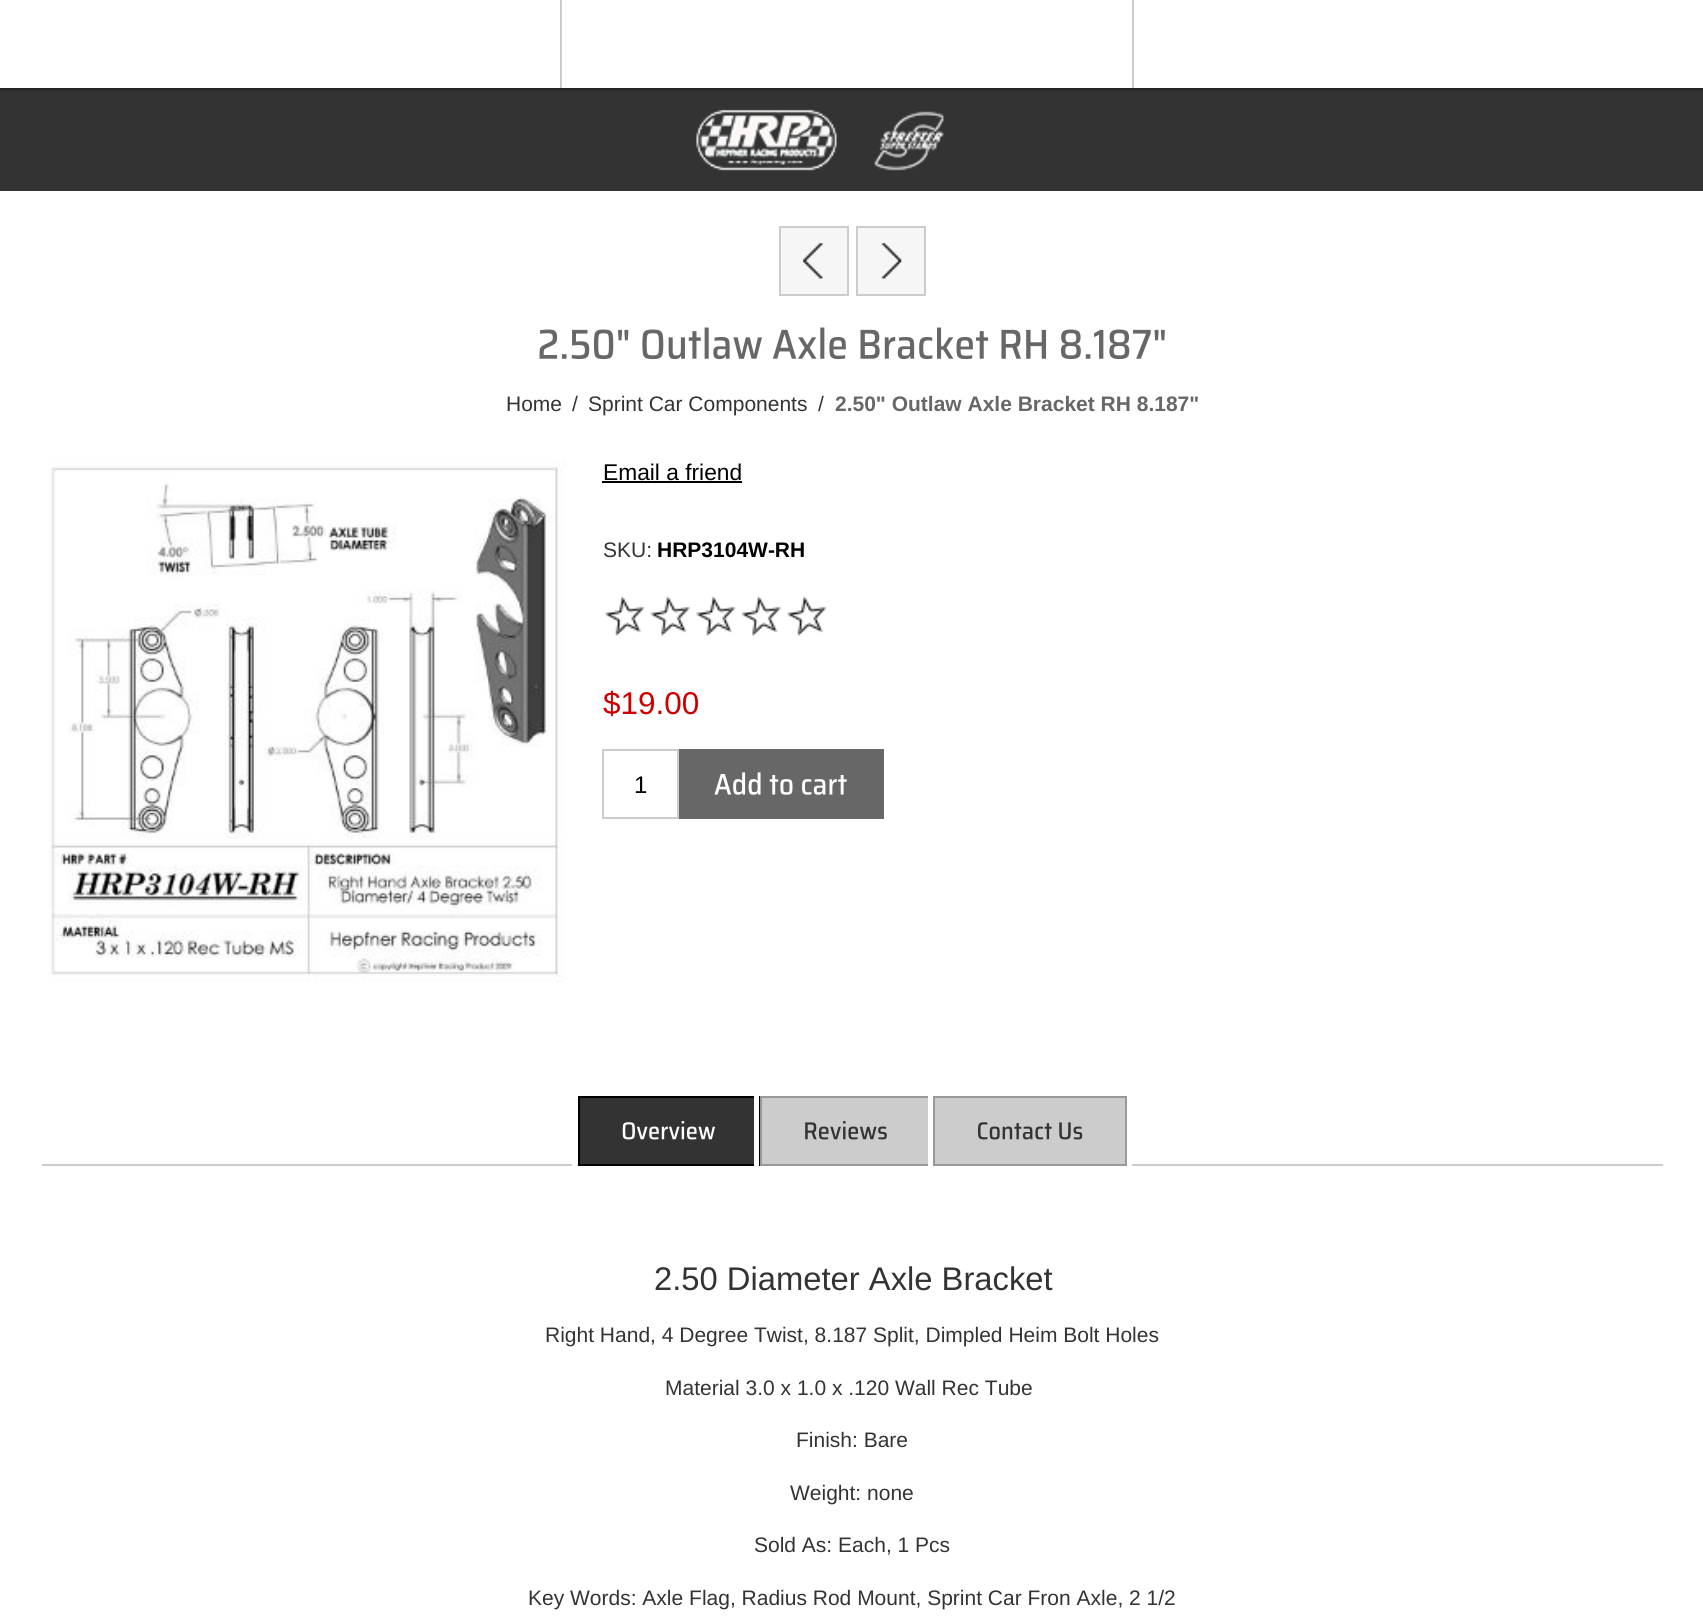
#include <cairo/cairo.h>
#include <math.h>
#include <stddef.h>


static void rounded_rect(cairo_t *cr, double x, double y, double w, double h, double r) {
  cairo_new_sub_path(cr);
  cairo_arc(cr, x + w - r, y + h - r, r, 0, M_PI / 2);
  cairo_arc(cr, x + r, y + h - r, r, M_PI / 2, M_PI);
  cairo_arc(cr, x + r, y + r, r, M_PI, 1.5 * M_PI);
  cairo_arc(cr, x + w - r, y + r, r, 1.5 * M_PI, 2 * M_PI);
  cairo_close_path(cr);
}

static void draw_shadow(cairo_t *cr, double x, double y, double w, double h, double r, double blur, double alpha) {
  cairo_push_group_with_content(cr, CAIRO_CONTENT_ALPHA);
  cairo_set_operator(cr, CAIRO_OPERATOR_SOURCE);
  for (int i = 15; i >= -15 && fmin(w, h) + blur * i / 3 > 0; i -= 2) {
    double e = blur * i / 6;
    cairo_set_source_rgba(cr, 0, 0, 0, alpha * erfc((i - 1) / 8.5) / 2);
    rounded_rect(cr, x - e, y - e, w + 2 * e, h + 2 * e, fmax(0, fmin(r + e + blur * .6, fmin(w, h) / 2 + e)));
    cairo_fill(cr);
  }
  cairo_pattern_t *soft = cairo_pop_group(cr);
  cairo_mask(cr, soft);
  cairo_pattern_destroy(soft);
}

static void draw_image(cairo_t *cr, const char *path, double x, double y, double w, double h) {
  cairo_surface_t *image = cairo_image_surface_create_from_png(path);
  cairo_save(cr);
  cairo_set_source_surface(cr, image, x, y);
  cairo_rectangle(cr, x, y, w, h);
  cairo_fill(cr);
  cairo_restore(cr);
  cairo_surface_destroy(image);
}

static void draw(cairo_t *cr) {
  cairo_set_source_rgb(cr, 1, 1, 1);
  cairo_paint(cr);
  cairo_set_source_rgb(cr, 51 / 255.0, 51 / 255.0, 51 / 255.0);
  cairo_rectangle(cr, 0, 88, 1703, 103);
  cairo_fill(cr);
  cairo_set_source_rgb(cr, 0, 0, 0);
  draw_shadow(cr, 0, 0, 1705, 88, 0, 2.5, 0.75);
  cairo_set_source_rgb(cr, 1, 1, 1);
  cairo_rectangle(cr, 0, 0, 1703, 88);
  cairo_fill(cr);
  cairo_set_source_rgb(cr, 204 / 255.0, 204 / 255.0, 204 / 255.0);
  cairo_rectangle(cr, 560, 0, 2, 88);
  cairo_fill(cr);
  cairo_rectangle(cr, 1132, 0, 2, 88);
  cairo_fill(cr);
  draw_image(cr, "images/1.png", 696, 109, 248, 62);
  cairo_set_source_rgb(cr, 246 / 255.0, 246 / 255.0, 246 / 255.0);
  cairo_rectangle(cr, 781, 228, 66, 66);
  cairo_fill(cr);
  draw_image(cr, "images/2.png", 803, 242, 20, 37);
  cairo_rectangle(cr, 780, 227, 68, 68);
  cairo_set_source_rgb(cr, 204 / 255.0, 204 / 255.0, 204 / 255.0);
  cairo_stroke(cr);
  cairo_set_source_rgb(cr, 246 / 255.0, 246 / 255.0, 246 / 255.0);
  cairo_rectangle(cr, 858, 228, 66, 66);
  cairo_fill(cr);
  draw_image(cr, "images/3.png", 881, 242, 21, 37);
  cairo_rectangle(cr, 857, 227, 68, 68);
  cairo_set_source_rgb(cr, 204 / 255.0, 204 / 255.0, 204 / 255.0);
  cairo_stroke(cr);
  draw_image(cr, "images/4.png", 539, 327, 626, 33);
  draw_image(cr, "images/5.png", 49, 459, 517, 524);
  cairo_set_source_rgb(cr, 0, 0, 0);
  cairo_rectangle(cr, 602, 481, 140, 2);
  cairo_fill(cr);
  draw_image(cr, "images/6.png", 605, 596, 222, 40);
  cairo_rectangle(cr, 603, 750, 75, 68);
  cairo_set_source_rgb(cr, 204 / 255.0, 204 / 255.0, 204 / 255.0);
  cairo_stroke(cr);
  cairo_set_source_rgb(cr, 103 / 255.0, 103 / 255.0, 103 / 255.0);
  cairo_rectangle(cr, 679, 749, 205, 70);
  cairo_fill(cr);
  draw_image(cr, "images/7.png", 714, 772, 133, 23);
  cairo_set_source_rgb(cr, 204 / 255.0, 204 / 255.0, 204 / 255.0);
  cairo_rectangle(cr, 42, 1164, 1621, 2);
  cairo_fill(cr);
  cairo_rectangle(cr, 574.5, 1092.5, 188, 76);
  cairo_set_source_rgb(cr, 1, 1, 1);
  cairo_set_line_width(cr, 5);
  cairo_stroke(cr);
  cairo_set_source_rgb(cr, 51 / 255.0, 51 / 255.0, 51 / 255.0);
  cairo_rectangle(cr, 580, 1098, 174, 66);
  cairo_fill(cr);
  cairo_rectangle(cr, 579, 1097, 180, 68);
  cairo_set_source_rgb(cr, 0, 0, 0);
  cairo_set_line_width(cr, 2);
  cairo_stroke(cr);
  draw_image(cr, "images/8.png", 622, 1121, 93, 19);
  cairo_rectangle(cr, 756.5, 1092.5, 179, 76);
  cairo_set_source_rgb(cr, 1, 1, 1);
  cairo_set_line_width(cr, 5);
  cairo_stroke(cr);
  cairo_set_source_rgb(cr, 204 / 255.0, 204 / 255.0, 204 / 255.0);
  cairo_rectangle(cr, 762, 1098, 166, 66);
  cairo_fill(cr);
  cairo_rectangle(cr, 761, 1097, 171, 68);
  cairo_set_source_rgb(cr, 153 / 255.0, 153 / 255.0, 153 / 255.0);
  cairo_set_line_width(cr, 2);
  cairo_stroke(cr);
  draw_image(cr, "images/9.png", 805, 1121, 82, 19);
  cairo_rectangle(cr, 930.5, 1092.5, 199, 76);
  cairo_set_source_rgb(cr, 1, 1, 1);
  cairo_set_line_width(cr, 5);
  cairo_stroke(cr);
  cairo_set_source_rgb(cr, 204 / 255.0, 204 / 255.0, 204 / 255.0);
  cairo_rectangle(cr, 934, 1097, 192, 68);
  cairo_fill_preserve(cr);
  cairo_set_source_rgb(cr, 153 / 255.0, 153 / 255.0, 153 / 255.0);
  cairo_set_line_width(cr, 2);
  cairo_stroke(cr);
  draw_image(cr, "images/10.png", 978, 1122, 105, 18);
  cairo_select_font_face(cr, "Liberation Sans", CAIRO_FONT_SLANT_NORMAL, CAIRO_FONT_WEIGHT_NORMAL);
  cairo_set_font_size(cr, 21);
  cairo_set_source_rgb(cr, 51 / 255.0, 51 / 255.0, 51 / 255.0);
  cairo_move_to(cr, 506, 411);
  cairo_show_text(cr, "Home");
  cairo_move_to(cr, 572, 411);
  cairo_show_text(cr, "/");
  cairo_move_to(cr, 588, 411);
  cairo_show_text(cr, "Sprint Car Components");
  cairo_move_to(cr, 818, 411);
  cairo_show_text(cr, "/");
  cairo_select_font_face(cr, "Liberation Sans", CAIRO_FONT_SLANT_NORMAL, CAIRO_FONT_WEIGHT_BOLD);
  cairo_set_source_rgb(cr, 103 / 255.0, 103 / 255.0, 103 / 255.0);
  cairo_move_to(cr, 835, 411);
  cairo_show_text(cr, "2.50\" Outlaw Axle Bracket RH 8.187\"");
  cairo_select_font_face(cr, "Liberation Sans", CAIRO_FONT_SLANT_NORMAL, CAIRO_FONT_WEIGHT_NORMAL);
  cairo_set_font_size(cr, 22.75);
  cairo_set_source_rgb(cr, 0, 0, 0);
  cairo_move_to(cr, 603, 480);
  cairo_show_text(cr, "Email a friend");
  cairo_set_font_size(cr, 21);
  cairo_set_source_rgb(cr, 51 / 255.0, 51 / 255.0, 51 / 255.0);
  cairo_move_to(cr, 603, 557);
  cairo_show_text(cr, "SKU:");
  cairo_select_font_face(cr, "Liberation Sans", CAIRO_FONT_SLANT_NORMAL, CAIRO_FONT_WEIGHT_BOLD);
  cairo_set_source_rgb(cr, 0, 0, 0);
  cairo_move_to(cr, 657, 557);
  cairo_show_text(cr, "HRP3104W-RH");
  cairo_select_font_face(cr, "Liberation Sans", CAIRO_FONT_SLANT_NORMAL, CAIRO_FONT_WEIGHT_NORMAL);
  cairo_set_font_size(cr, 31.5);
  cairo_set_source_rgb(cr, 204 / 255.0, 0, 0);
  cairo_move_to(cr, 603, 714);
  cairo_show_text(cr, "$19.00");
  cairo_set_font_size(cr, 24);
  cairo_set_source_rgb(cr, 0, 0, 0);
  cairo_move_to(cr, 634, 793);
  cairo_show_text(cr, "1");
  cairo_set_font_size(cr, 32.75);
  cairo_set_source_rgb(cr, 51 / 255.0, 51 / 255.0, 51 / 255.0);
  cairo_move_to(cr, 654, 1290);
  cairo_show_text(cr, "2.50 Diameter Axle Bracket");
  cairo_set_font_size(cr, 21);
  cairo_move_to(cr, 545, 1342);
  cairo_show_text(cr, "Right Hand, 4 Degree Twist, 8.187 Split, Dimpled Heim Bolt Holes");
  cairo_move_to(cr, 665, 1395);
  cairo_show_text(cr, "Material 3.0 x 1.0 x .120 Wall Rec Tube");
  cairo_move_to(cr, 796, 1447);
  cairo_show_text(cr, "Finish: Bare");
  cairo_move_to(cr, 790, 1500);
  cairo_show_text(cr, "Weight: none");
  cairo_move_to(cr, 754, 1552);
  cairo_show_text(cr, "Sold As: Each, 1 Pcs");
  cairo_move_to(cr, 528, 1605);
  cairo_show_text(cr, "Key Words: Axle Flag, Radius Rod Mount, Sprint Car Fron Axle, 2 1/2");
}

int main(void) {
  cairo_surface_t *surface = cairo_image_surface_create(CAIRO_FORMAT_RGB24, 1703, 1616);
  cairo_t *cr = cairo_create(surface);
  cairo_font_options_t *options = cairo_font_options_create();
  cairo_font_options_set_hint_metrics(options, CAIRO_HINT_METRICS_OFF);
  cairo_font_options_set_hint_style(options, CAIRO_HINT_STYLE_NONE);
  cairo_set_font_options(cr, options);
  cairo_set_miter_limit(cr, 4);
  draw(cr);
  cairo_surface_write_to_png(surface, "out.png");
  cairo_font_options_destroy(options);
  cairo_destroy(cr);
  cairo_surface_destroy(surface);
  return 0;
}
